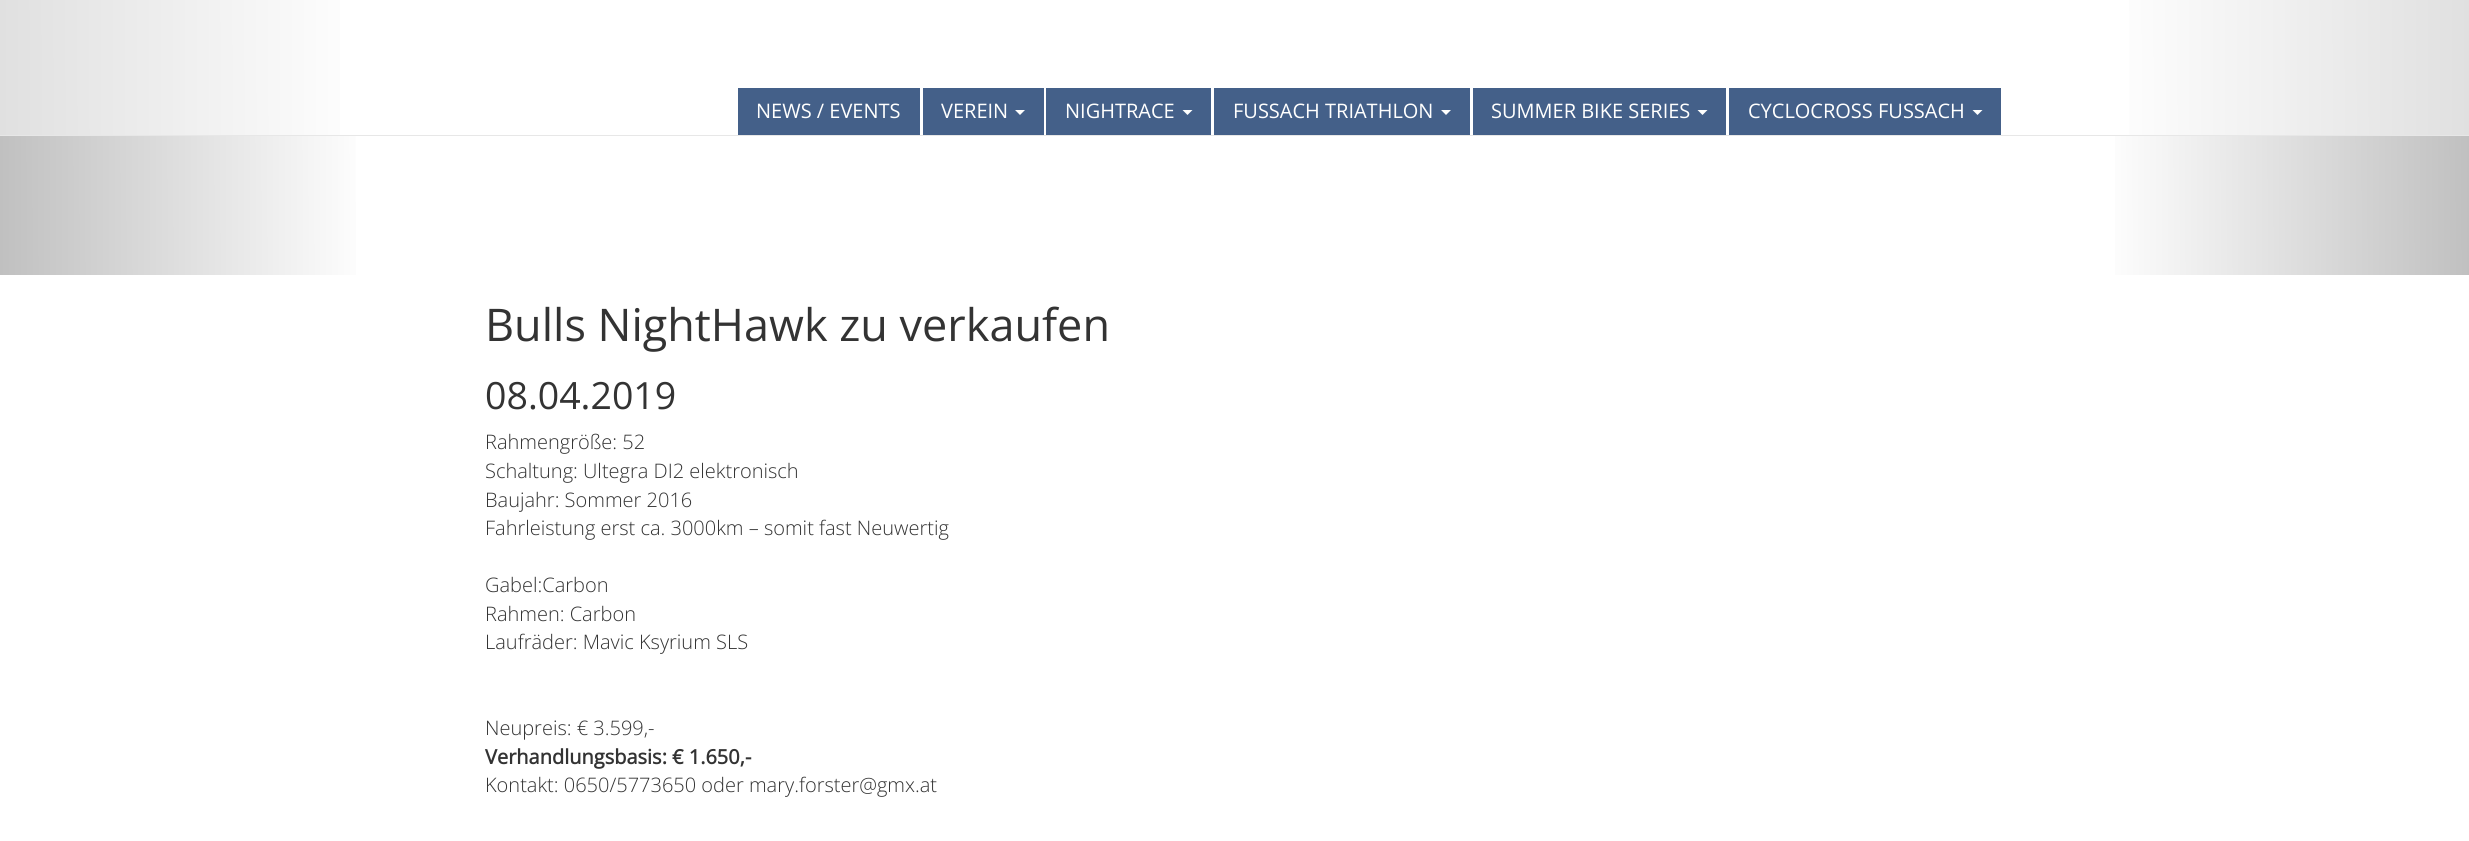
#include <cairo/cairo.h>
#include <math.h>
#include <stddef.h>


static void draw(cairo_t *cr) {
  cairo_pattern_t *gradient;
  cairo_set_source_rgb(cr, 1, 1, 1);
  cairo_paint(cr);
  gradient = cairo_pattern_create_linear(0, 138, 370, 137);
  cairo_pattern_add_color_stop_rgba(gradient, 0, 192 / 255.0, 192 / 255.0, 192 / 255.0, 1);
  cairo_pattern_add_color_stop_rgba(gradient, 1, 1, 1, 1, 1);
  cairo_set_source(cr, gradient);
  cairo_pattern_destroy(gradient);
  cairo_rectangle(cr, 0, 136, 356, 139);
  cairo_fill(cr);
  gradient = cairo_pattern_create_linear(0, 138, 370, 137);
  cairo_pattern_add_color_stop_rgba(gradient, 0, 224 / 255.0, 224 / 255.0, 224 / 255.0, 1);
  cairo_pattern_add_color_stop_rgba(gradient, 1, 1, 1, 1, 1);
  cairo_set_source(cr, gradient);
  cairo_pattern_destroy(gradient);
  cairo_rectangle(cr, 0, 0, 340, 135);
  cairo_fill(cr);
  gradient = cairo_pattern_create_linear(2100, 138, 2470, 137);
  cairo_pattern_add_color_stop_rgba(gradient, 0, 1, 1, 1, 1);
  cairo_pattern_add_color_stop_rgba(gradient, 1, 192 / 255.0, 192 / 255.0, 192 / 255.0, 1);
  cairo_set_source(cr, gradient);
  cairo_pattern_destroy(gradient);
  cairo_rectangle(cr, 2115, 136, 354, 139);
  cairo_fill(cr);
  gradient = cairo_pattern_create_linear(2100, 138, 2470, 137);
  cairo_pattern_add_color_stop_rgba(gradient, 0, 1, 1, 1, 1);
  cairo_pattern_add_color_stop_rgba(gradient, 1, 224 / 255.0, 224 / 255.0, 224 / 255.0, 1);
  cairo_set_source(cr, gradient);
  cairo_pattern_destroy(gradient);
  cairo_rectangle(cr, 2129, 0, 340, 135);
  cairo_fill(cr);
  cairo_set_source_rgb(cr, 231 / 255.0, 231 / 255.0, 231 / 255.0);
  cairo_rectangle(cr, 0, 135, 2469, 1);
  cairo_fill(cr);
  cairo_set_source_rgb(cr, 68 / 255.0, 96 / 255.0, 137 / 255.0);
  cairo_rectangle(cr, 738, 88, 182, 47);
  cairo_fill(cr);
  cairo_rectangle(cr, 923, 88, 121, 47);
  cairo_fill(cr);
  cairo_set_source_rgb(cr, 1, 1, 254 / 255.0);
  cairo_new_path(cr);
  cairo_move_to(cr, 1015, 110);
  cairo_line_to(cr, 1025, 110);
  cairo_line_to(cr, 1020, 115);
  cairo_close_path(cr);
  cairo_fill(cr);
  cairo_set_source_rgb(cr, 68 / 255.0, 96 / 255.0, 137 / 255.0);
  cairo_rectangle(cr, 1046, 88, 165, 47);
  cairo_fill(cr);
  cairo_set_source_rgb(cr, 1, 1, 254 / 255.0);
  cairo_new_path(cr);
  cairo_move_to(cr, 1182.5, 110);
  cairo_line_to(cr, 1192.5, 110);
  cairo_line_to(cr, 1187.5, 115);
  cairo_close_path(cr);
  cairo_fill(cr);
  cairo_set_source_rgb(cr, 68 / 255.0, 96 / 255.0, 137 / 255.0);
  cairo_rectangle(cr, 1214, 88, 256, 47);
  cairo_fill(cr);
  cairo_set_source_rgb(cr, 1, 1, 254 / 255.0);
  cairo_new_path(cr);
  cairo_move_to(cr, 1441, 110);
  cairo_line_to(cr, 1451, 110);
  cairo_line_to(cr, 1446, 115);
  cairo_close_path(cr);
  cairo_fill(cr);
  cairo_set_source_rgb(cr, 68 / 255.0, 96 / 255.0, 137 / 255.0);
  cairo_rectangle(cr, 1473, 88, 253, 47);
  cairo_fill(cr);
  cairo_set_source_rgb(cr, 1, 1, 254 / 255.0);
  cairo_new_path(cr);
  cairo_move_to(cr, 1697.5, 110);
  cairo_line_to(cr, 1707.5, 110);
  cairo_line_to(cr, 1702.5, 115);
  cairo_close_path(cr);
  cairo_fill(cr);
  cairo_set_source_rgb(cr, 68 / 255.0, 96 / 255.0, 137 / 255.0);
  cairo_rectangle(cr, 1729, 88, 272, 47);
  cairo_fill(cr);
  cairo_set_source_rgb(cr, 1, 1, 254 / 255.0);
  cairo_new_path(cr);
  cairo_move_to(cr, 1972.5, 110);
  cairo_line_to(cr, 1982.5, 110);
  cairo_line_to(cr, 1977.5, 115);
  cairo_close_path(cr);
  cairo_fill(cr);
  cairo_select_font_face(cr, "Open Sans", CAIRO_FONT_SLANT_NORMAL, CAIRO_FONT_WEIGHT_NORMAL);
  cairo_set_font_size(cr, 20);
  cairo_move_to(cr, 756, 118);
  cairo_show_text(cr, "NEWS / EVENTS");
  cairo_move_to(cr, 941, 118);
  cairo_show_text(cr, "VEREIN");
  cairo_move_to(cr, 1065, 118);
  cairo_show_text(cr, "NIGHTRACE");
  cairo_move_to(cr, 1233, 118);
  cairo_show_text(cr, "FUSSACH TRIATHLON");
  cairo_move_to(cr, 1491, 118);
  cairo_show_text(cr, "SUMMER BIKE SERIES");
  cairo_move_to(cr, 1748, 118);
  cairo_show_text(cr, "CYCLOCROSS FUSSACH");
  cairo_set_font_size(cr, 45);
  cairo_set_source_rgb(cr, 51 / 255.0, 51 / 255.0, 51 / 255.0);
  cairo_move_to(cr, 485, 341);
  cairo_show_text(cr, "Bulls NightHawk zu verkaufen");
  cairo_set_font_size(cr, 37.5);
  cairo_move_to(cr, 485, 409);
  cairo_show_text(cr, "08.04.2019");
  cairo_select_font_face(cr, "Open Sans Light", CAIRO_FONT_SLANT_NORMAL, CAIRO_FONT_WEIGHT_NORMAL);
  cairo_set_font_size(cr, 20);
  cairo_move_to(cr, 485, 449);
  cairo_show_text(cr, "Rahmengröße: 52");
  cairo_move_to(cr, 485, 478);
  cairo_show_text(cr, "Schaltung: Ultegra DI2 elektronisch");
  cairo_move_to(cr, 485, 507);
  cairo_show_text(cr, "Baujahr: Sommer 2016");
  cairo_move_to(cr, 485, 535);
  cairo_show_text(cr, "Fahrleistung erst ca. 3000km – somit fast Neuwertig");
  cairo_move_to(cr, 485, 592);
  cairo_show_text(cr, "Gabel:Carbon");
  cairo_move_to(cr, 485, 621);
  cairo_show_text(cr, "Rahmen: Carbon");
  cairo_move_to(cr, 485, 649);
  cairo_show_text(cr, "Laufräder: Mavic Ksyrium SLS");
  cairo_move_to(cr, 485, 735);
  cairo_show_text(cr, "Neupreis: € 3.599,-");
  cairo_select_font_face(cr, "Open Sans", CAIRO_FONT_SLANT_NORMAL, CAIRO_FONT_WEIGHT_BOLD);
  cairo_move_to(cr, 485, 764);
  cairo_show_text(cr, "Verhandlungsbasis: € 1.650,-");
  cairo_select_font_face(cr, "Open Sans Light", CAIRO_FONT_SLANT_NORMAL, CAIRO_FONT_WEIGHT_NORMAL);
  cairo_move_to(cr, 485, 792);
  cairo_show_text(cr, "Kontakt: 0650/5773650 oder mary.forster@gmx.at");
}

int main(void) {
  cairo_surface_t *surface = cairo_image_surface_create(CAIRO_FORMAT_RGB24, 2469, 841);
  cairo_t *cr = cairo_create(surface);
  cairo_font_options_t *options = cairo_font_options_create();
  cairo_font_options_set_hint_metrics(options, CAIRO_HINT_METRICS_OFF);
  cairo_font_options_set_hint_style(options, CAIRO_HINT_STYLE_NONE);
  cairo_set_font_options(cr, options);
  cairo_set_miter_limit(cr, 4);
  draw(cr);
  cairo_surface_write_to_png(surface, "out.png");
  cairo_font_options_destroy(options);
  cairo_destroy(cr);
  cairo_surface_destroy(surface);
  return 0;
}
